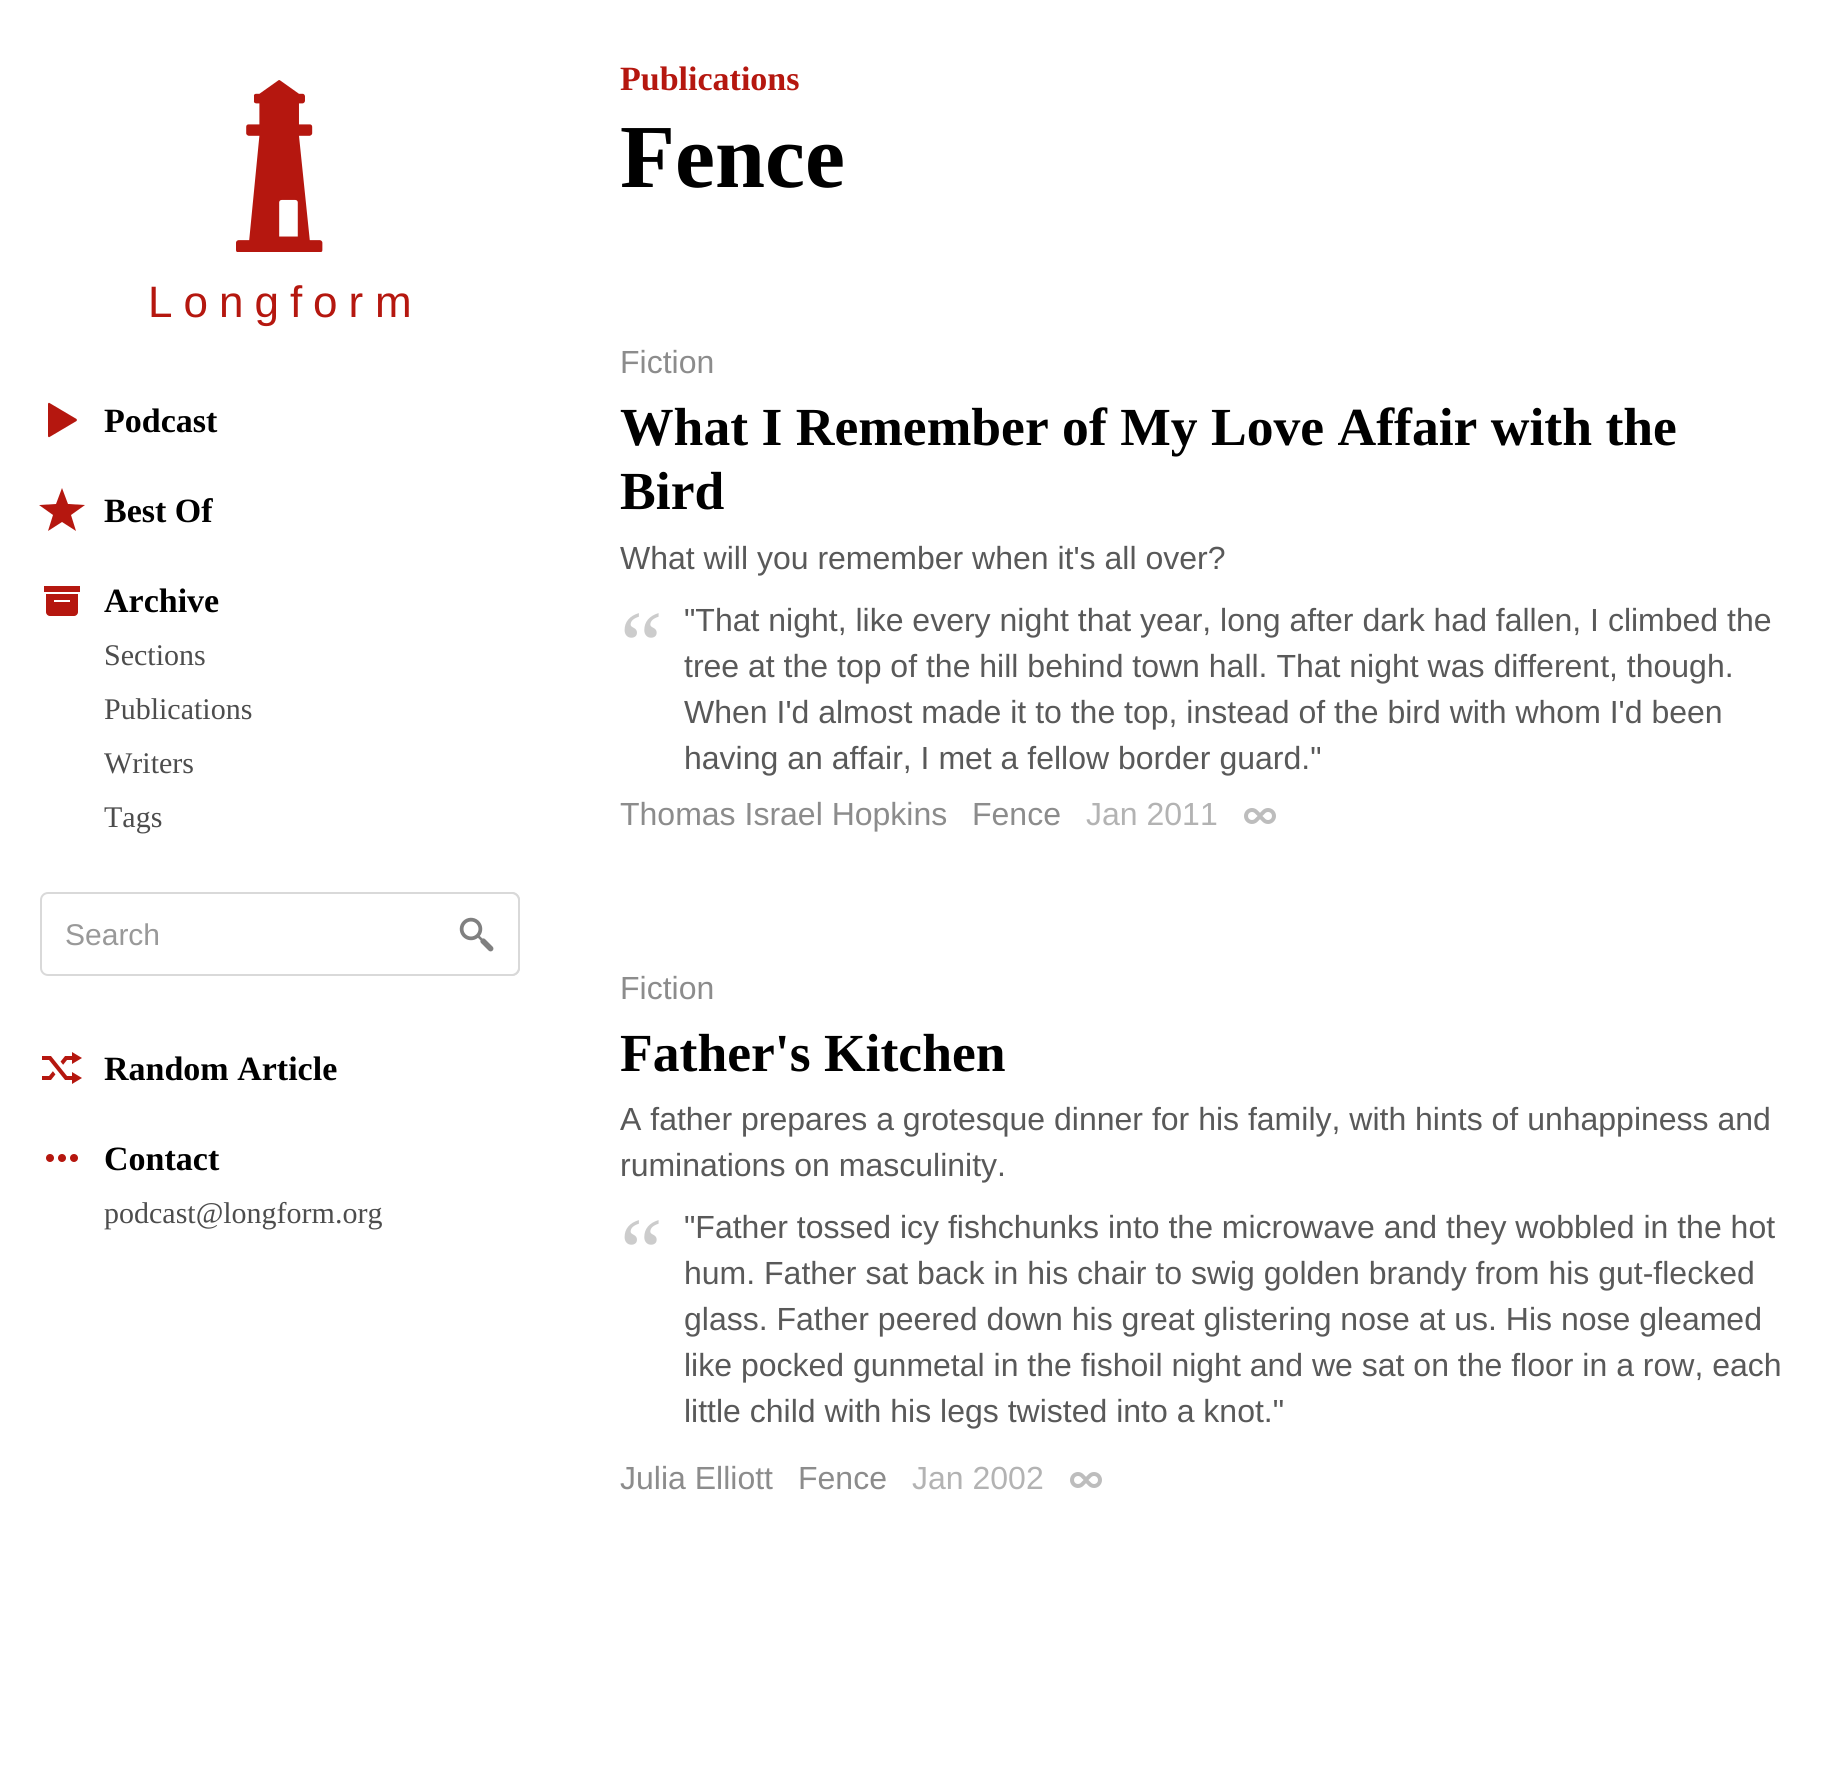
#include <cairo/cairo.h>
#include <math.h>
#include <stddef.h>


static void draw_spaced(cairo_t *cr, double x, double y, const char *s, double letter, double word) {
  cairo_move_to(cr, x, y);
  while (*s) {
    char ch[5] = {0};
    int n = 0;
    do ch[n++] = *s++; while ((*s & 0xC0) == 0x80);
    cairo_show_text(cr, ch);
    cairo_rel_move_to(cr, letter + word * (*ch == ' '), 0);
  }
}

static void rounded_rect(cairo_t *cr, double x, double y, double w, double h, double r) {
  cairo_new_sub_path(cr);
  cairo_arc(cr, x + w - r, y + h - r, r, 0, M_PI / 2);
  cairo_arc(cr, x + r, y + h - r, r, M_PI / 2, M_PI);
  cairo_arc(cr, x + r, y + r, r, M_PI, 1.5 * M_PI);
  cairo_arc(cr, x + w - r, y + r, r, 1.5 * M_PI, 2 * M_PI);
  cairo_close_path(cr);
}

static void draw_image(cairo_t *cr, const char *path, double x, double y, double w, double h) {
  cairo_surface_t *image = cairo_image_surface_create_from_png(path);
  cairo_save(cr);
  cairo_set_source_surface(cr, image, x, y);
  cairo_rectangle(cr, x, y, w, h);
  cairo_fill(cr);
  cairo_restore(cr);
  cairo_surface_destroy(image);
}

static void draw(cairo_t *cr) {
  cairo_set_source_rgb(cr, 1, 1, 1);
  cairo_paint(cr);
  draw_image(cr, "images/1.png", 236, 80, 87, 172);
  cairo_set_source_rgb(cr, 181 / 255.0, 23 / 255.0, 15 / 255.0);
  cairo_set_fill_rule(cr, CAIRO_FILL_RULE_EVEN_ODD);
  cairo_new_path(cr);
  cairo_move_to(cr, 49.5, 437);
  cairo_curve_to(cr, 49, 437.5, 48, 437, 48, 436);
  cairo_line_to(cr, 48, 404);
  cairo_curve_to(cr, 48, 403, 49, 402.5, 49.5, 403);
  cairo_line_to(cr, 76.5, 419);
  cairo_curve_to(cr, 77, 419.5, 77, 420.5, 76.5, 421);
  cairo_close_path(cr);
  cairo_fill(cr);
  cairo_new_path(cr);
  cairo_move_to(cr, 62, 522);
  cairo_line_to(cr, 48, 531);
  cairo_line_to(cr, 53, 515);
  cairo_line_to(cr, 39, 505);
  cairo_line_to(cr, 56, 504);
  cairo_line_to(cr, 62, 488);
  cairo_line_to(cr, 68, 504);
  cairo_line_to(cr, 85, 505);
  cairo_line_to(cr, 71, 515);
  cairo_line_to(cr, 76, 531);
  cairo_close_path(cr);
  cairo_fill(cr);
  draw_image(cr, "images/2.png", 44, 586, 36, 30);
  rounded_rect(cr, 41, 893, 478, 82, 7);
  cairo_set_source_rgb(cr, 217 / 255.0, 217 / 255.0, 217 / 255.0);
  cairo_stroke(cr);
  cairo_set_source_rgb(cr, 1, 1, 1);
  cairo_new_path(cr);
  cairo_move_to(cr, 438, 894);
  cairo_line_to(cr, 512, 894);
  cairo_curve_to(cr, 515.5, 894, 518, 896.5, 518, 900);
  cairo_line_to(cr, 518, 968);
  cairo_curve_to(cr, 518, 971.5, 515.5, 974, 512, 974);
  cairo_line_to(cr, 438, 974);
  cairo_close_path(cr);
  cairo_fill(cr);
  draw_image(cr, "images/3.png", 459, 917, 35, 35);
  cairo_set_source_rgb(cr, 217 / 255.0, 217 / 255.0, 217 / 255.0);
  cairo_new_path(cr);
  cairo_move_to(cr, 438, 892);
  cairo_line_to(cr, 512, 892);
  cairo_curve_to(cr, 516, 892, 520, 896, 520, 900);
  cairo_line_to(cr, 520, 968);
  cairo_curve_to(cr, 520, 972, 516, 976, 512, 976);
  cairo_line_to(cr, 438, 976);
  cairo_close_path(cr);
  cairo_move_to(cr, 438, 894);
  cairo_line_to(cr, 512, 894);
  cairo_curve_to(cr, 515, 894, 518, 897, 518, 900);
  cairo_line_to(cr, 518, 968);
  cairo_curve_to(cr, 518, 971, 515, 974, 512, 974);
  cairo_line_to(cr, 438, 974);
  cairo_close_path(cr);
  cairo_fill(cr);
  draw_image(cr, "images/4.png", 42, 1052, 40, 32);
  draw_image(cr, "images/5.png", 46, 1154, 32, 8);
  draw_image(cr, "images/6.png", 1244, 808, 32, 16);
  draw_image(cr, "images/6.png", 1070, 1472, 32, 16);
  cairo_select_font_face(cr, "Liberation Sans", CAIRO_FONT_SLANT_NORMAL, CAIRO_FONT_WEIGHT_NORMAL);
  cairo_set_font_size(cr, 44);
  cairo_set_source_rgb(cr, 181 / 255.0, 23 / 255.0, 15 / 255.0);
  draw_spaced(cr, 148, 317, "Longfor", 11, 0);
  cairo_move_to(cr, 375, 317);
  cairo_show_text(cr, "m");
  cairo_select_font_face(cr, "Liberation Serif", CAIRO_FONT_SLANT_NORMAL, CAIRO_FONT_WEIGHT_BOLD);
  cairo_set_font_size(cr, 34);
  cairo_set_source_rgb(cr, 0, 0, 0);
  cairo_move_to(cr, 104, 432);
  cairo_show_text(cr, "Podcast");
  cairo_move_to(cr, 104, 522);
  cairo_show_text(cr, "Best Of");
  cairo_move_to(cr, 104, 612);
  cairo_show_text(cr, "Archive");
  cairo_select_font_face(cr, "Liberation Serif", CAIRO_FONT_SLANT_NORMAL, CAIRO_FONT_WEIGHT_NORMAL);
  cairo_set_font_size(cr, 30);
  cairo_set_source_rgb(cr, 77 / 255.0, 77 / 255.0, 77 / 255.0);
  cairo_move_to(cr, 104, 665);
  cairo_show_text(cr, "Sections");
  cairo_move_to(cr, 104, 719);
  cairo_show_text(cr, "Publications");
  cairo_move_to(cr, 104, 773);
  cairo_show_text(cr, "Writers");
  cairo_move_to(cr, 104, 827);
  cairo_show_text(cr, "Tags");
  cairo_select_font_face(cr, "Liberation Sans", CAIRO_FONT_SLANT_NORMAL, CAIRO_FONT_WEIGHT_NORMAL);
  cairo_set_source_rgb(cr, 153 / 255.0, 153 / 255.0, 153 / 255.0);
  cairo_move_to(cr, 65, 945);
  cairo_show_text(cr, "Search");
  cairo_select_font_face(cr, "Liberation Serif", CAIRO_FONT_SLANT_NORMAL, CAIRO_FONT_WEIGHT_BOLD);
  cairo_set_font_size(cr, 34);
  cairo_set_source_rgb(cr, 0, 0, 0);
  cairo_move_to(cr, 104, 1080);
  cairo_show_text(cr, "Random Article");
  cairo_move_to(cr, 104, 1170);
  cairo_show_text(cr, "Contact");
  cairo_select_font_face(cr, "Liberation Serif", CAIRO_FONT_SLANT_NORMAL, CAIRO_FONT_WEIGHT_NORMAL);
  cairo_set_font_size(cr, 30);
  cairo_set_source_rgb(cr, 77 / 255.0, 77 / 255.0, 77 / 255.0);
  cairo_move_to(cr, 104, 1223);
  cairo_show_text(cr, "podcast@longform.org");
  cairo_select_font_face(cr, "Liberation Serif", CAIRO_FONT_SLANT_NORMAL, CAIRO_FONT_WEIGHT_BOLD);
  cairo_set_font_size(cr, 34);
  cairo_set_source_rgb(cr, 181 / 255.0, 23 / 255.0, 15 / 255.0);
  cairo_move_to(cr, 620, 90);
  cairo_show_text(cr, "Publications");
  cairo_set_font_size(cr, 90);
  cairo_set_source_rgb(cr, 0, 0, 0);
  cairo_move_to(cr, 620, 187);
  cairo_show_text(cr, "Fence");
  cairo_select_font_face(cr, "Liberation Sans", CAIRO_FONT_SLANT_NORMAL, CAIRO_FONT_WEIGHT_NORMAL);
  cairo_set_font_size(cr, 32);
  cairo_set_source_rgb(cr, 140 / 255.0, 140 / 255.0, 140 / 255.0);
  cairo_move_to(cr, 620, 373);
  cairo_show_text(cr, "Fiction");
  cairo_select_font_face(cr, "Liberation Serif", CAIRO_FONT_SLANT_NORMAL, CAIRO_FONT_WEIGHT_BOLD);
  cairo_set_font_size(cr, 53.6);
  cairo_set_source_rgb(cr, 0, 0, 0);
  cairo_move_to(cr, 620, 445);
  cairo_show_text(cr, "What I Remember of My Love Affair with the");
  cairo_move_to(cr, 620, 509);
  cairo_show_text(cr, "Bird");
  cairo_select_font_face(cr, "Liberation Sans", CAIRO_FONT_SLANT_NORMAL, CAIRO_FONT_WEIGHT_NORMAL);
  cairo_set_font_size(cr, 32);
  cairo_set_source_rgb(cr, 89 / 255.0, 89 / 255.0, 89 / 255.0);
  cairo_move_to(cr, 620, 569);
  cairo_show_text(cr, "What will you remember when it's all over?");
  cairo_select_font_face(cr, "Liberation Serif", CAIRO_FONT_SLANT_NORMAL, CAIRO_FONT_WEIGHT_NORMAL);
  cairo_set_font_size(cr, 96);
  cairo_set_source_rgb(cr, 204 / 255.0, 204 / 255.0, 204 / 255.0);
  cairo_move_to(cr, 620, 677);
  cairo_show_text(cr, "“");
  cairo_select_font_face(cr, "Liberation Sans", CAIRO_FONT_SLANT_NORMAL, CAIRO_FONT_WEIGHT_NORMAL);
  cairo_set_font_size(cr, 32);
  cairo_set_source_rgb(cr, 89 / 255.0, 89 / 255.0, 89 / 255.0);
  cairo_move_to(cr, 684, 631);
  cairo_show_text(cr, "\"That night, like every night that year, long after dark had fallen, I climbed the");
  cairo_move_to(cr, 684, 677);
  cairo_show_text(cr, "tree at the top of the hill behind town hall. That night was different, though.");
  cairo_move_to(cr, 684, 723);
  cairo_show_text(cr, "When I'd almost made it to the top, instead of the bird with whom I'd been");
  cairo_move_to(cr, 684, 769);
  cairo_show_text(cr, "having an affair, I met a fellow border guard.\"");
  cairo_set_source_rgb(cr, 140 / 255.0, 140 / 255.0, 140 / 255.0);
  cairo_move_to(cr, 620, 825);
  cairo_show_text(cr, "Thomas Israel Hopkins");
  cairo_move_to(cr, 972, 825);
  cairo_show_text(cr, "Fence");
  cairo_set_source_rgb(cr, 179 / 255.0, 179 / 255.0, 179 / 255.0);
  cairo_move_to(cr, 1086, 825);
  cairo_show_text(cr, "Jan 2011");
  cairo_set_source_rgb(cr, 140 / 255.0, 140 / 255.0, 140 / 255.0);
  cairo_move_to(cr, 620, 999);
  cairo_show_text(cr, "Fiction");
  cairo_select_font_face(cr, "Liberation Serif", CAIRO_FONT_SLANT_NORMAL, CAIRO_FONT_WEIGHT_BOLD);
  cairo_set_font_size(cr, 53.6);
  cairo_set_source_rgb(cr, 0, 0, 0);
  cairo_move_to(cr, 620, 1071);
  cairo_show_text(cr, "Father's Kitchen");
  cairo_select_font_face(cr, "Liberation Sans", CAIRO_FONT_SLANT_NORMAL, CAIRO_FONT_WEIGHT_NORMAL);
  cairo_set_font_size(cr, 32);
  cairo_set_source_rgb(cr, 89 / 255.0, 89 / 255.0, 89 / 255.0);
  cairo_move_to(cr, 620, 1130);
  cairo_show_text(cr, "A father prepares a grotesque dinner for his family, with hints of unhappiness and");
  cairo_move_to(cr, 620, 1176);
  cairo_show_text(cr, "ruminations on masculinity.");
  cairo_select_font_face(cr, "Liberation Serif", CAIRO_FONT_SLANT_NORMAL, CAIRO_FONT_WEIGHT_NORMAL);
  cairo_set_font_size(cr, 96);
  cairo_set_source_rgb(cr, 204 / 255.0, 204 / 255.0, 204 / 255.0);
  cairo_move_to(cr, 620, 1284);
  cairo_show_text(cr, "“");
  cairo_select_font_face(cr, "Liberation Sans", CAIRO_FONT_SLANT_NORMAL, CAIRO_FONT_WEIGHT_NORMAL);
  cairo_set_font_size(cr, 32);
  cairo_set_source_rgb(cr, 89 / 255.0, 89 / 255.0, 89 / 255.0);
  cairo_move_to(cr, 684, 1238);
  cairo_show_text(cr, "\"Father tossed icy fishchunks into the microwave and they wobbled in the hot");
  cairo_move_to(cr, 684, 1284);
  cairo_show_text(cr, "hum. Father sat back in his chair to swig golden brandy from his gut-flecked");
  cairo_move_to(cr, 684, 1330);
  cairo_show_text(cr, "glass. Father peered down his great glistering nose at us. His nose gleamed");
  cairo_move_to(cr, 684, 1376);
  cairo_show_text(cr, "like pocked gunmetal in the fishoil night and we sat on the floor in a row, each");
  cairo_move_to(cr, 684, 1422);
  cairo_show_text(cr, "little child with his legs twisted into a knot.\"");
  cairo_set_source_rgb(cr, 140 / 255.0, 140 / 255.0, 140 / 255.0);
  cairo_move_to(cr, 620, 1489);
  cairo_show_text(cr, "Julia Elliott");
  cairo_move_to(cr, 798, 1489);
  cairo_show_text(cr, "Fence");
  cairo_set_source_rgb(cr, 179 / 255.0, 179 / 255.0, 179 / 255.0);
  cairo_move_to(cr, 912, 1489);
  cairo_show_text(cr, "Jan 2002");
}

int main(void) {
  cairo_surface_t *surface = cairo_image_surface_create(CAIRO_FORMAT_RGB24, 1844, 1777);
  cairo_t *cr = cairo_create(surface);
  cairo_font_options_t *options = cairo_font_options_create();
  cairo_font_options_set_hint_metrics(options, CAIRO_HINT_METRICS_OFF);
  cairo_font_options_set_hint_style(options, CAIRO_HINT_STYLE_NONE);
  cairo_set_font_options(cr, options);
  cairo_set_miter_limit(cr, 4);
  draw(cr);
  cairo_surface_write_to_png(surface, "out.png");
  cairo_font_options_destroy(options);
  cairo_destroy(cr);
  cairo_surface_destroy(surface);
  return 0;
}
